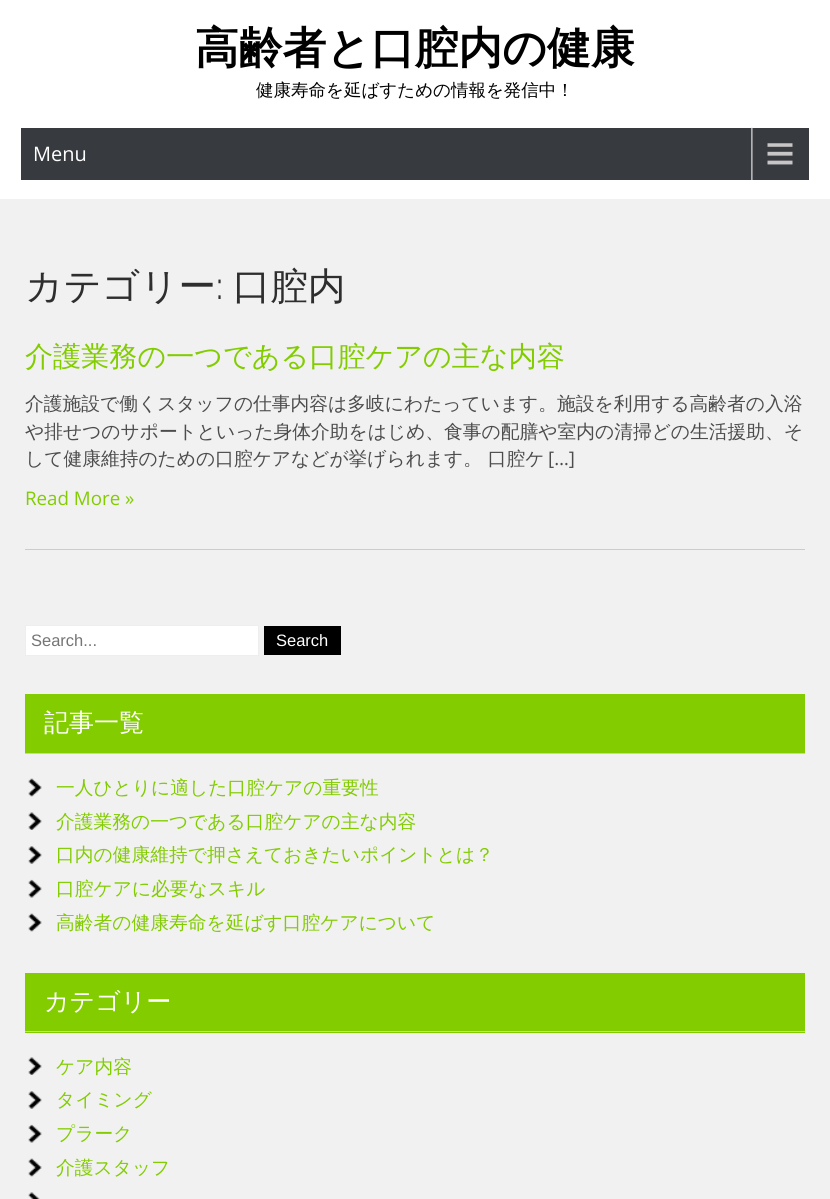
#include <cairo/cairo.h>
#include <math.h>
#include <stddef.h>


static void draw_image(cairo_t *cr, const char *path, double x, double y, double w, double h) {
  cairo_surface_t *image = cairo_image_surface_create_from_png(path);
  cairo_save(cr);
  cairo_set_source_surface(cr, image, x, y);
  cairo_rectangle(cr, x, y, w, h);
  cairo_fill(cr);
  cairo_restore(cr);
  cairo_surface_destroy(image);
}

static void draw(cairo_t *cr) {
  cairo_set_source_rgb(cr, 241 / 255.0, 241 / 255.0, 241 / 255.0);
  cairo_paint(cr);
  cairo_set_source_rgb(cr, 1, 1, 1);
  cairo_rectangle(cr, 0, 0, 830, 199);
  cairo_fill(cr);
  cairo_set_source_rgb(cr, 55 / 255.0, 58 / 255.0, 63 / 255.0);
  cairo_rectangle(cr, 21, 128, 788, 52);
  cairo_fill(cr);
  draw_image(cr, "images/1.png", 751, 127, 42, 53);
  cairo_set_source_rgb(cr, 204 / 255.0, 204 / 255.0, 204 / 255.0);
  cairo_rectangle(cr, 25, 549, 780, 1);
  cairo_fill(cr);
  cairo_set_source_rgb(cr, 1, 1, 1);
  cairo_rectangle(cr, 25.5, 625.5, 233, 30);
  cairo_fill_preserve(cr);
  cairo_set_source_rgb(cr, 238 / 255.0, 238 / 255.0, 238 / 255.0);
  cairo_set_line_width(cr, 1);
  cairo_stroke(cr);
  cairo_set_source_rgb(cr, 0, 0, 0);
  cairo_rectangle(cr, 264, 626, 77, 29);
  cairo_fill(cr);
  cairo_set_source_rgb(cr, 130 / 255.0, 204 / 255.0, 0);
  cairo_rectangle(cr, 25, 694, 780, 59);
  cairo_fill(cr);
  cairo_set_source_rgb(cr, 204 / 255.0, 204 / 255.0, 204 / 255.0);
  cairo_rectangle(cr, 25, 753, 780, 1);
  cairo_fill(cr);
  draw_image(cr, "images/2.png", 28, 778, 14, 19);
  draw_image(cr, "images/3.png", 28, 812, 14, 18);
  draw_image(cr, "images/4.png", 28, 846, 14, 18);
  draw_image(cr, "images/5.png", 28, 879, 14, 19);
  draw_image(cr, "images/6.png", 28, 913, 14, 19);
  cairo_set_source_rgb(cr, 130 / 255.0, 204 / 255.0, 0);
  cairo_rectangle(cr, 25, 973, 780, 60);
  cairo_fill(cr);
  cairo_set_source_rgb(cr, 204 / 255.0, 204 / 255.0, 204 / 255.0);
  cairo_rectangle(cr, 25, 1031, 780, 1);
  cairo_fill(cr);
  draw_image(cr, "images/3.png", 28, 1057, 14, 18);
  draw_image(cr, "images/4.png", 28, 1091, 14, 18);
  draw_image(cr, "images/5.png", 28, 1124, 14, 19);
  draw_image(cr, "images/6.png", 28, 1158, 14, 19);
  draw_image(cr, "images/7.png", 28, 1192, 12, 7);
  cairo_select_font_face(cr, "WenQuanYi Zen Hei", CAIRO_FONT_SLANT_NORMAL, CAIRO_FONT_WEIGHT_BOLD);
  cairo_set_font_size(cr, 43.75);
  cairo_set_source_rgb(cr, 0, 0, 0);
  cairo_move_to(cr, 195, 63);
  cairo_show_text(cr, "高齢者と口腔内の健康");
  cairo_select_font_face(cr, "WenQuanYi Zen Hei Medium", CAIRO_FONT_SLANT_NORMAL, CAIRO_FONT_WEIGHT_NORMAL);
  cairo_set_font_size(cr, 17.5);
  cairo_move_to(cr, 256, 96);
  cairo_show_text(cr, "健康寿命を延ばすための情報を発信中！");
  cairo_select_font_face(cr, "Open Sans", CAIRO_FONT_SLANT_NORMAL, CAIRO_FONT_WEIGHT_NORMAL);
  cairo_set_font_size(cr, 20);
  cairo_set_source_rgb(cr, 1, 1, 1);
  cairo_move_to(cr, 33, 161);
  cairo_show_text(cr, "Menu");
  cairo_select_font_face(cr, "WenQuanYi Zen Hei Medium", CAIRO_FONT_SLANT_NORMAL, CAIRO_FONT_WEIGHT_NORMAL);
  cairo_set_font_size(cr, 37.5);
  cairo_set_source_rgb(cr, 46 / 255.0, 46 / 255.0, 46 / 255.0);
  cairo_move_to(cr, 25, 299);
  cairo_show_text(cr, "カテゴリー");
  cairo_select_font_face(cr, "Raleway", CAIRO_FONT_SLANT_NORMAL, CAIRO_FONT_WEIGHT_NORMAL);
  cairo_move_to(cr, 216, 299);
  cairo_show_text(cr, ":");
  cairo_select_font_face(cr, "WenQuanYi Zen Hei Medium", CAIRO_FONT_SLANT_NORMAL, CAIRO_FONT_WEIGHT_NORMAL);
  cairo_move_to(cr, 233, 299);
  cairo_show_text(cr, "口腔内");
  cairo_set_font_size(cr, 28.1);
  cairo_set_source_rgb(cr, 130 / 255.0, 204 / 255.0, 0);
  cairo_move_to(cr, 25, 366);
  cairo_show_text(cr, "介護業務の一つである口腔ケアの主な内容");
  cairo_set_font_size(cr, 18.75);
  cairo_set_source_rgb(cr, 76 / 255.0, 76 / 255.0, 76 / 255.0);
  cairo_move_to(cr, 25, 410);
  cairo_show_text(cr, "介護施設で働くスタッフの仕事内容は多岐にわたっています。施設を利用する高齢者の入浴");
  cairo_move_to(cr, 25, 438);
  cairo_show_text(cr, "や排せつのサポートといった身体介助をはじめ、食事の配膳や室内の清掃どの生活援助、そ");
  cairo_move_to(cr, 25, 465);
  cairo_show_text(cr, "して健康維持のための口腔ケアなどが挙げられます。 口腔ケ");
  cairo_select_font_face(cr, "Open Sans", CAIRO_FONT_SLANT_NORMAL, CAIRO_FONT_WEIGHT_NORMAL);
  cairo_move_to(cr, 548, 465);
  cairo_show_text(cr, "[…]");
  cairo_set_source_rgb(cr, 130 / 255.0, 204 / 255.0, 0);
  cairo_move_to(cr, 25, 505);
  cairo_show_text(cr, "Read More »");
  cairo_select_font_face(cr, "Liberation Sans", CAIRO_FONT_SLANT_NORMAL, CAIRO_FONT_WEIGHT_NORMAL);
  cairo_set_font_size(cr, 16.5);
  cairo_set_source_rgb(cr, 117 / 255.0, 117 / 255.0, 117 / 255.0);
  cairo_move_to(cr, 31, 646);
  cairo_show_text(cr, "Search...");
  cairo_set_source_rgb(cr, 1, 1, 1);
  cairo_move_to(cr, 276, 646);
  cairo_show_text(cr, "Search");
  cairo_select_font_face(cr, "WenQuanYi Zen Hei Medium", CAIRO_FONT_SLANT_NORMAL, CAIRO_FONT_WEIGHT_NORMAL);
  cairo_set_font_size(cr, 25);
  cairo_move_to(cr, 44, 731);
  cairo_show_text(cr, "記事一覧");
  cairo_set_font_size(cr, 18.75);
  cairo_set_source_rgb(cr, 130 / 255.0, 204 / 255.0, 0);
  cairo_move_to(cr, 56, 794);
  cairo_show_text(cr, "一人ひとりに適した口腔ケアの重要性");
  cairo_move_to(cr, 56, 828);
  cairo_show_text(cr, "介護業務の一つである口腔ケアの主な内容");
  cairo_move_to(cr, 56, 861);
  cairo_show_text(cr, "口内の健康維持で押さえておきたいポイントとは？");
  cairo_move_to(cr, 56, 895);
  cairo_show_text(cr, "口腔ケアに必要なスキル");
  cairo_move_to(cr, 56, 929);
  cairo_show_text(cr, "高齢者の健康寿命を延ばす口腔ケアについて");
  cairo_set_font_size(cr, 25);
  cairo_set_source_rgb(cr, 1, 1, 1);
  cairo_move_to(cr, 44, 1010);
  cairo_show_text(cr, "カテゴリー");
  cairo_set_font_size(cr, 18.75);
  cairo_set_source_rgb(cr, 130 / 255.0, 204 / 255.0, 0);
  cairo_move_to(cr, 56, 1073);
  cairo_show_text(cr, "ケア内容");
  cairo_move_to(cr, 56, 1106);
  cairo_show_text(cr, "タイミング");
  cairo_move_to(cr, 56, 1140);
  cairo_show_text(cr, "プラーク");
  cairo_move_to(cr, 56, 1174);
  cairo_show_text(cr, "介護スタッフ");
}

int main(void) {
  cairo_surface_t *surface = cairo_image_surface_create(CAIRO_FORMAT_RGB24, 830, 1199);
  cairo_t *cr = cairo_create(surface);
  cairo_font_options_t *options = cairo_font_options_create();
  cairo_font_options_set_hint_metrics(options, CAIRO_HINT_METRICS_OFF);
  cairo_font_options_set_hint_style(options, CAIRO_HINT_STYLE_NONE);
  cairo_set_font_options(cr, options);
  cairo_set_miter_limit(cr, 4);
  draw(cr);
  cairo_surface_write_to_png(surface, "out.png");
  cairo_font_options_destroy(options);
  cairo_destroy(cr);
  cairo_surface_destroy(surface);
  return 0;
}
